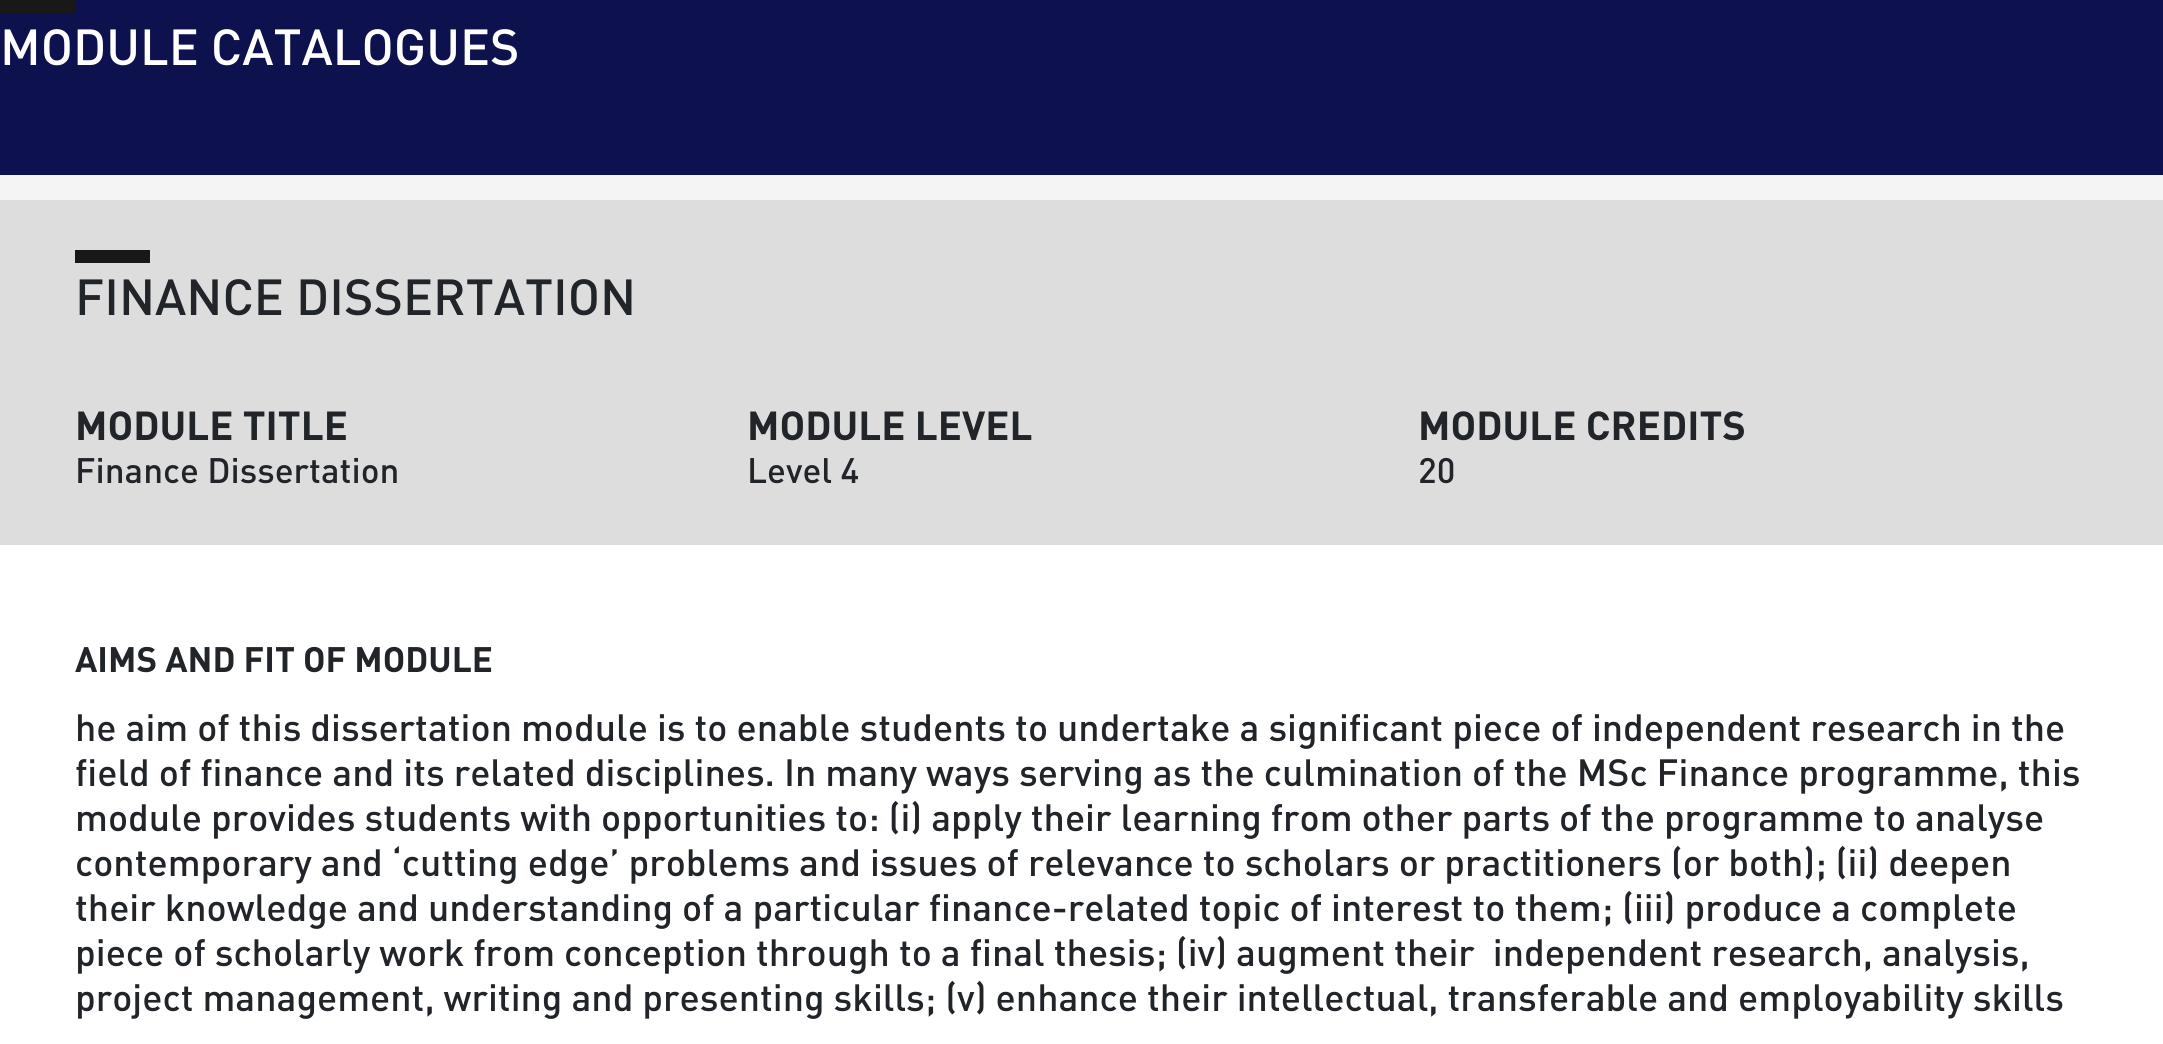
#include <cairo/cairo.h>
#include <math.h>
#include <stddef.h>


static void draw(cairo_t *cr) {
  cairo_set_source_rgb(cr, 244 / 255.0, 244 / 255.0, 244 / 255.0);
  cairo_paint(cr);
  cairo_set_source_rgb(cr, 13 / 255.0, 17 / 255.0, 77 / 255.0);
  cairo_rectangle(cr, 0, 0, 2163, 175);
  cairo_fill(cr);
  cairo_set_source_rgb(cr, 24 / 255.0, 24 / 255.0, 24 / 255.0);
  cairo_rectangle(cr, 0, 0, 75, 13);
  cairo_fill(cr);
  cairo_set_source_rgb(cr, 221 / 255.0, 221 / 255.0, 221 / 255.0);
  cairo_rectangle(cr, 0, 200, 2163, 345);
  cairo_fill(cr);
  cairo_set_source_rgb(cr, 24 / 255.0, 24 / 255.0, 24 / 255.0);
  cairo_rectangle(cr, 75, 250, 75, 13);
  cairo_fill(cr);
  cairo_set_source_rgb(cr, 1, 1, 1);
  cairo_rectangle(cr, 0, 545, 2163, 499);
  cairo_fill(cr);
  cairo_select_font_face(cr, "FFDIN", CAIRO_FONT_SLANT_NORMAL, CAIRO_FONT_WEIGHT_NORMAL);
  cairo_set_font_size(cr, 50);
  cairo_move_to(cr, 0, 65);
  cairo_show_text(cr, "MODULE CATALOGUES");
  cairo_set_source_rgb(cr, 33 / 255.0, 37 / 255.0, 41 / 255.0);
  cairo_move_to(cr, 75, 315);
  cairo_show_text(cr, "FINANCE DISSERTATION");
  cairo_select_font_face(cr, "FFDIN", CAIRO_FONT_SLANT_NORMAL, CAIRO_FONT_WEIGHT_BOLD);
  cairo_set_font_size(cr, 40);
  cairo_move_to(cr, 75, 440);
  cairo_show_text(cr, "MODULE TITLE");
  cairo_select_font_face(cr, "FFDIN", CAIRO_FONT_SLANT_NORMAL, CAIRO_FONT_WEIGHT_NORMAL);
  cairo_set_font_size(cr, 35);
  cairo_move_to(cr, 75, 483);
  cairo_show_text(cr, "Finance Dissertation");
  cairo_select_font_face(cr, "FFDIN", CAIRO_FONT_SLANT_NORMAL, CAIRO_FONT_WEIGHT_BOLD);
  cairo_set_font_size(cr, 40);
  cairo_move_to(cr, 747, 440);
  cairo_show_text(cr, "MODULE LEVEL");
  cairo_select_font_face(cr, "FFDIN", CAIRO_FONT_SLANT_NORMAL, CAIRO_FONT_WEIGHT_NORMAL);
  cairo_set_font_size(cr, 35);
  cairo_move_to(cr, 747, 483);
  cairo_show_text(cr, "Level 4");
  cairo_select_font_face(cr, "FFDIN", CAIRO_FONT_SLANT_NORMAL, CAIRO_FONT_WEIGHT_BOLD);
  cairo_set_font_size(cr, 40);
  cairo_move_to(cr, 1418, 440);
  cairo_show_text(cr, "MODULE CREDITS");
  cairo_select_font_face(cr, "FFDIN", CAIRO_FONT_SLANT_NORMAL, CAIRO_FONT_WEIGHT_NORMAL);
  cairo_set_font_size(cr, 35);
  cairo_move_to(cr, 1418, 483);
  cairo_show_text(cr, "20");
  cairo_select_font_face(cr, "FFDIN", CAIRO_FONT_SLANT_NORMAL, CAIRO_FONT_WEIGHT_BOLD);
  cairo_move_to(cr, 75, 672);
  cairo_show_text(cr, "AIMS AND FIT OF MODULE");
  cairo_select_font_face(cr, "FFDIN", CAIRO_FONT_SLANT_NORMAL, CAIRO_FONT_WEIGHT_NORMAL);
  cairo_set_font_size(cr, 37.5);
  cairo_move_to(cr, 75, 741);
  cairo_show_text(cr, "he aim of this dissertation module is to enable students to undertake a significant piece of independent research in the");
  cairo_move_to(cr, 75, 786);
  cairo_show_text(cr, "field of finance and its related disciplines. In many ways serving as the culmination of the MSc Finance programme, this");
  cairo_move_to(cr, 75, 831);
  cairo_show_text(cr, "module provides students with opportunities to: (i) apply their learning from other parts of the programme to analyse");
  cairo_move_to(cr, 75, 876);
  cairo_show_text(cr, "contemporary and ‘cutting edge’ problems and issues of relevance to scholars or practitioners (or both); (ii) deepen");
  cairo_move_to(cr, 75, 921);
  cairo_show_text(cr, "their knowledge and understanding of a particular finance-related topic of interest to them; (iii) produce a complete");
  cairo_move_to(cr, 75, 966);
  cairo_show_text(cr, "piece of scholarly work from conception through to a final thesis; (iv) augment their  independent research, analysis,");
  cairo_move_to(cr, 75, 1011);
  cairo_show_text(cr, "project management, writing and presenting skills; (v) enhance their intellectual, transferable and employability skills");
}

int main(void) {
  cairo_surface_t *surface = cairo_image_surface_create(CAIRO_FORMAT_RGB24, 2163, 1044);
  cairo_t *cr = cairo_create(surface);
  cairo_font_options_t *options = cairo_font_options_create();
  cairo_font_options_set_hint_metrics(options, CAIRO_HINT_METRICS_OFF);
  cairo_font_options_set_hint_style(options, CAIRO_HINT_STYLE_NONE);
  cairo_set_font_options(cr, options);
  cairo_set_miter_limit(cr, 4);
  draw(cr);
  cairo_surface_write_to_png(surface, "out.png");
  cairo_font_options_destroy(options);
  cairo_destroy(cr);
  cairo_surface_destroy(surface);
  return 0;
}
